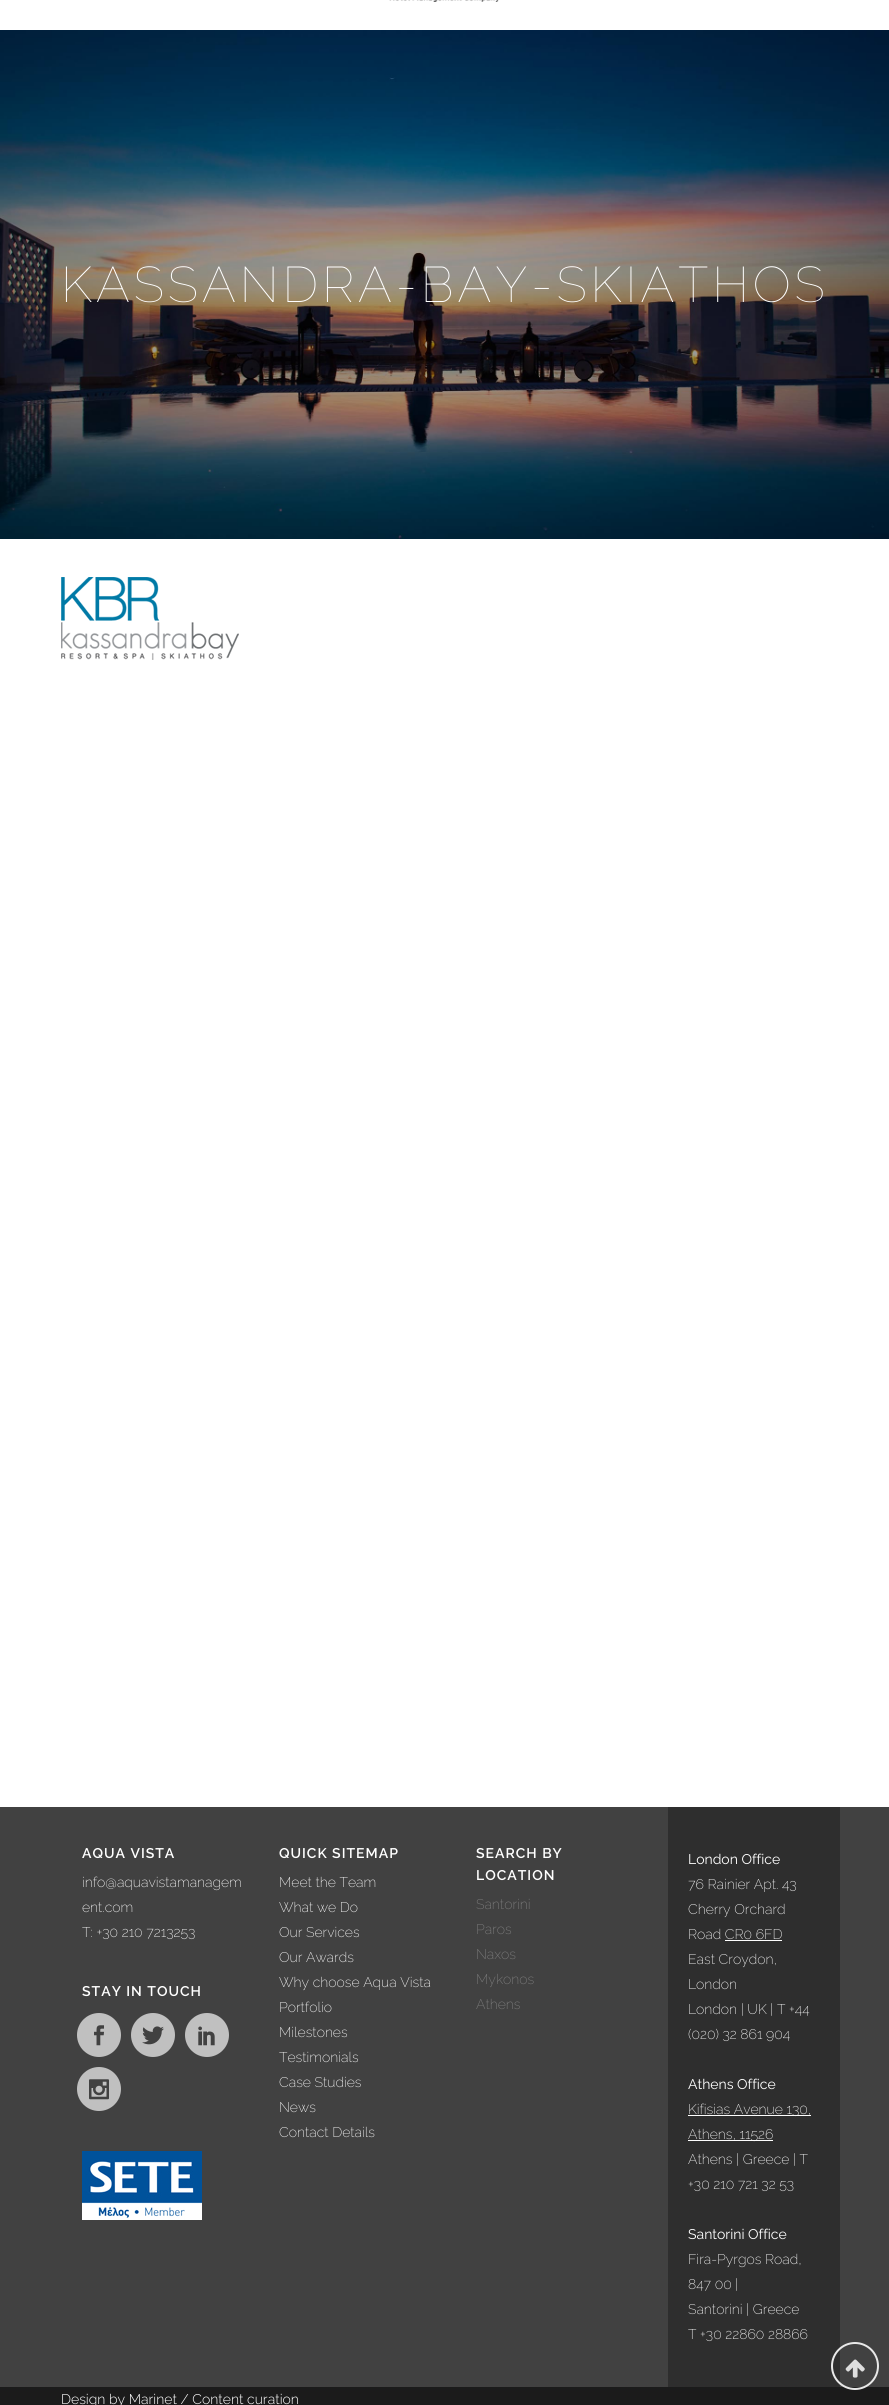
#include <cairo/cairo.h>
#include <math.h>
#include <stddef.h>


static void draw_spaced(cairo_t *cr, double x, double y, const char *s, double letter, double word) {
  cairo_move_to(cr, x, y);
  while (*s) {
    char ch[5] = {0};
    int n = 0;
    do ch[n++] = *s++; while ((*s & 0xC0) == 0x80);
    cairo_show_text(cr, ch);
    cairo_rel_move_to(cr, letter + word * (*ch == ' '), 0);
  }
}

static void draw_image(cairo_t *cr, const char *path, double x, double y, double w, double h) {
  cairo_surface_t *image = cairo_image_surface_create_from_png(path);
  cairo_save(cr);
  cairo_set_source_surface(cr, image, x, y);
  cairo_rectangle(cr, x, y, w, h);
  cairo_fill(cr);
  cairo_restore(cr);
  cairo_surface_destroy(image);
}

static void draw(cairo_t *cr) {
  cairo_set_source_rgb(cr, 1, 1, 1);
  cairo_paint(cr);
  draw_image(cr, "images/1.png", 389, 0, 110, 2);
  draw_image(cr, "images/2.png", 0, 30, 889, 509);
  draw_image(cr, "images/3.png", 61, 577, 178, 83);
  cairo_set_source_rgb(cr, 65 / 255.0, 65 / 255.0, 65 / 255.0);
  cairo_rectangle(cr, 0, 1807, 889, 580);
  cairo_fill(cr);
  cairo_set_source_rgb(cr, 192 / 255.0, 192 / 255.0, 192 / 255.0);
  cairo_arc(cr, 99, 2035, 22, 0, 2 * M_PI);
  cairo_fill(cr);
  draw_image(cr, "images/4.png", 94, 2025, 10, 21);
  cairo_arc(cr, 153, 2035, 22, 0, 2 * M_PI);
  cairo_fill(cr);
  draw_image(cr, "images/5.png", 142, 2026, 22, 19);
  cairo_arc(cr, 207, 2035, 22, 0, 2 * M_PI);
  cairo_fill(cr);
  draw_image(cr, "images/6.png", 198, 2026, 17, 20);
  cairo_arc(cr, 99, 2089, 22, 0, 2 * M_PI);
  cairo_fill(cr);
  draw_image(cr, "images/7.png", 89, 2079, 20, 21);
  draw_image(cr, "images/8.png", 82, 2151, 120, 69);
  cairo_set_source_rgb(cr, 46 / 255.0, 46 / 255.0, 46 / 255.0);
  cairo_rectangle(cr, 668, 1807, 172, 580);
  cairo_fill(cr);
  cairo_set_source_rgb(cr, 1, 1, 1);
  cairo_rectangle(cr, 725, 1940, 57, 1);
  cairo_fill(cr);
  cairo_rectangle(cr, 688, 2115, 123, 1);
  cairo_fill(cr);
  cairo_rectangle(cr, 688, 2140, 85, 1);
  cairo_fill(cr);
  cairo_set_source_rgb(cr, 27 / 255.0, 27 / 255.0, 27 / 255.0);
  cairo_rectangle(cr, 0, 2387, 889, 18);
  cairo_fill(cr);
  cairo_arc(cr, 855, 2366, 23, 0, 2 * M_PI);
  cairo_set_source_rgb(cr, 232 / 255.0, 232 / 255.0, 232 / 255.0);
  cairo_stroke(cr);
  draw_image(cr, "images/9.png", 845, 2359, 20, 19);
  cairo_select_font_face(cr, "Raleway Thin", CAIRO_FONT_SLANT_NORMAL, CAIRO_FONT_WEIGHT_NORMAL);
  cairo_set_font_size(cr, 50);
  cairo_set_source_rgb(cr, 1, 1, 1);
  draw_spaced(cr, 61, 302, "KASSANDRA-BAY-SKIATHOS", 4, 0);
  cairo_select_font_face(cr, "Raleway SemiBold", CAIRO_FONT_SLANT_NORMAL, CAIRO_FONT_WEIGHT_NORMAL);
  cairo_set_font_size(cr, 14);
  draw_spaced(cr, 82, 1858, "AQUA VISTA", 1, 0);
  cairo_select_font_face(cr, "Raleway ExtraLight", CAIRO_FONT_SLANT_NORMAL, CAIRO_FONT_WEIGHT_NORMAL);
  cairo_move_to(cr, 82, 1887);
  cairo_show_text(cr, "info@aquavistamanagem");
  cairo_move_to(cr, 82, 1912);
  cairo_show_text(cr, "ent.com");
  cairo_move_to(cr, 82, 1937);
  cairo_show_text(cr, "T: +30 210 7213253");
  cairo_select_font_face(cr, "Raleway SemiBold", CAIRO_FONT_SLANT_NORMAL, CAIRO_FONT_WEIGHT_NORMAL);
  draw_spaced(cr, 82, 1996, "STAY IN TOUCH", 1, 0);
  draw_spaced(cr, 279, 1858, "QUICK SITEMAP", 1, 0);
  cairo_select_font_face(cr, "Raleway ExtraLight", CAIRO_FONT_SLANT_NORMAL, CAIRO_FONT_WEIGHT_NORMAL);
  cairo_move_to(cr, 279, 1887);
  cairo_show_text(cr, "Meet the Team");
  cairo_move_to(cr, 279, 1912);
  cairo_show_text(cr, "What we Do");
  cairo_move_to(cr, 279, 1937);
  cairo_show_text(cr, "Our Services");
  cairo_move_to(cr, 279, 1962);
  cairo_show_text(cr, "Our Awards");
  cairo_move_to(cr, 279, 1987);
  cairo_show_text(cr, "Why choose Aqua Vista");
  cairo_move_to(cr, 279, 2012);
  cairo_show_text(cr, "Portfolio");
  cairo_move_to(cr, 279, 2037);
  cairo_show_text(cr, "Milestones");
  cairo_move_to(cr, 279, 2062);
  cairo_show_text(cr, "Testimonials");
  cairo_move_to(cr, 279, 2087);
  cairo_show_text(cr, "Case Studies");
  cairo_move_to(cr, 279, 2112);
  cairo_show_text(cr, "News");
  cairo_move_to(cr, 279, 2137);
  cairo_show_text(cr, "Contact Details");
  cairo_select_font_face(cr, "Raleway SemiBold", CAIRO_FONT_SLANT_NORMAL, CAIRO_FONT_WEIGHT_NORMAL);
  draw_spaced(cr, 476, 1858, "SEARCH BY", 1, 0);
  draw_spaced(cr, 476, 1880, "LOCATION", 1, 0);
  cairo_select_font_face(cr, "Raleway ExtraLight", CAIRO_FONT_SLANT_NORMAL, CAIRO_FONT_WEIGHT_NORMAL);
  cairo_set_source_rgb(cr, 129 / 255.0, 129 / 255.0, 129 / 255.0);
  cairo_move_to(cr, 476, 1909);
  cairo_show_text(cr, "Santorini");
  cairo_move_to(cr, 476, 1934);
  cairo_show_text(cr, "Paros");
  cairo_move_to(cr, 476, 1959);
  cairo_show_text(cr, "Naxos");
  cairo_move_to(cr, 476, 1984);
  cairo_show_text(cr, "Mykonos");
  cairo_move_to(cr, 476, 2009);
  cairo_show_text(cr, "Athens");
  cairo_select_font_face(cr, "Raleway", CAIRO_FONT_SLANT_NORMAL, CAIRO_FONT_WEIGHT_NORMAL);
  cairo_set_source_rgb(cr, 1, 1, 1);
  cairo_move_to(cr, 688, 1864);
  cairo_show_text(cr, "London Office");
  cairo_select_font_face(cr, "Raleway ExtraLight", CAIRO_FONT_SLANT_NORMAL, CAIRO_FONT_WEIGHT_NORMAL);
  cairo_move_to(cr, 688, 1889);
  cairo_show_text(cr, "76 Rainier Apt. 43");
  cairo_move_to(cr, 688, 1914);
  cairo_show_text(cr, "Cherry Orchard");
  cairo_move_to(cr, 688, 1939);
  cairo_show_text(cr, "Road CR0 6FD");
  cairo_move_to(cr, 688, 1964);
  cairo_show_text(cr, "East Croydon,");
  cairo_move_to(cr, 688, 1989);
  cairo_show_text(cr, "London");
  cairo_move_to(cr, 688, 2014);
  cairo_show_text(cr, "London | UK | T +44");
  cairo_move_to(cr, 688, 2039);
  cairo_show_text(cr, "(020) 32 861 904");
  cairo_select_font_face(cr, "Raleway", CAIRO_FONT_SLANT_NORMAL, CAIRO_FONT_WEIGHT_NORMAL);
  cairo_move_to(cr, 688, 2089);
  cairo_show_text(cr, "Athens Office");
  cairo_select_font_face(cr, "Raleway ExtraLight", CAIRO_FONT_SLANT_NORMAL, CAIRO_FONT_WEIGHT_NORMAL);
  cairo_move_to(cr, 688, 2114);
  cairo_show_text(cr, "Kifisias Avenue 130,");
  cairo_move_to(cr, 688, 2139);
  cairo_show_text(cr, "Athens, 11526");
  cairo_move_to(cr, 688, 2164);
  cairo_show_text(cr, "Athens | Greece | T");
  cairo_move_to(cr, 688, 2189);
  cairo_show_text(cr, "+30 210 721 32 53");
  cairo_select_font_face(cr, "Raleway", CAIRO_FONT_SLANT_NORMAL, CAIRO_FONT_WEIGHT_NORMAL);
  cairo_move_to(cr, 688, 2239);
  cairo_show_text(cr, "Santorini Office");
  cairo_select_font_face(cr, "Raleway ExtraLight", CAIRO_FONT_SLANT_NORMAL, CAIRO_FONT_WEIGHT_NORMAL);
  cairo_move_to(cr, 688, 2264);
  cairo_show_text(cr, "Fira-Pyrgos Road,");
  cairo_move_to(cr, 688, 2289);
  cairo_show_text(cr, "847 00 |");
  cairo_move_to(cr, 688, 2314);
  cairo_show_text(cr, "Santorini | Greece");
  cairo_move_to(cr, 688, 2339);
  cairo_show_text(cr, "T +30 22860 28866");
  cairo_select_font_face(cr, "Raleway Light", CAIRO_FONT_SLANT_NORMAL, CAIRO_FONT_WEIGHT_NORMAL);
  cairo_move_to(cr, 61, 2404);
  cairo_show_text(cr, "Design by Marinet / Content curation");
}

int main(void) {
  cairo_surface_t *surface = cairo_image_surface_create(CAIRO_FORMAT_RGB24, 889, 2405);
  cairo_t *cr = cairo_create(surface);
  cairo_font_options_t *options = cairo_font_options_create();
  cairo_font_options_set_hint_metrics(options, CAIRO_HINT_METRICS_OFF);
  cairo_font_options_set_hint_style(options, CAIRO_HINT_STYLE_NONE);
  cairo_set_font_options(cr, options);
  cairo_set_miter_limit(cr, 4);
  draw(cr);
  cairo_surface_write_to_png(surface, "out.png");
  cairo_font_options_destroy(options);
  cairo_destroy(cr);
  cairo_surface_destroy(surface);
  return 0;
}
